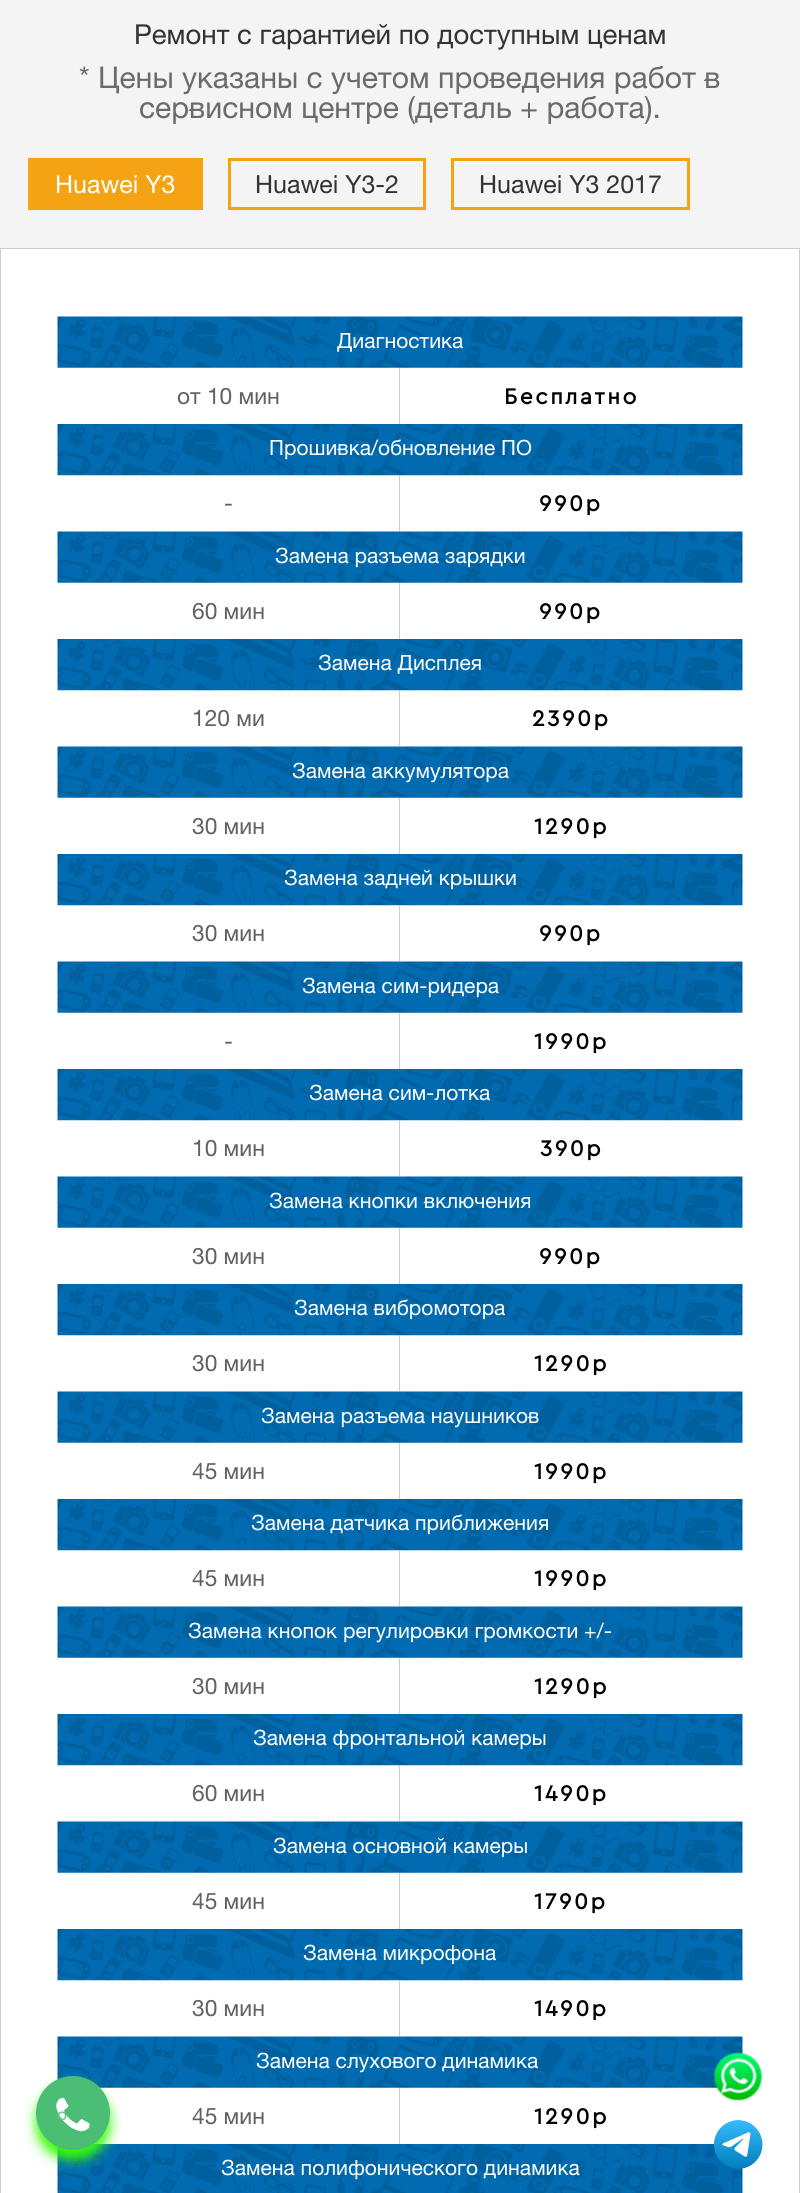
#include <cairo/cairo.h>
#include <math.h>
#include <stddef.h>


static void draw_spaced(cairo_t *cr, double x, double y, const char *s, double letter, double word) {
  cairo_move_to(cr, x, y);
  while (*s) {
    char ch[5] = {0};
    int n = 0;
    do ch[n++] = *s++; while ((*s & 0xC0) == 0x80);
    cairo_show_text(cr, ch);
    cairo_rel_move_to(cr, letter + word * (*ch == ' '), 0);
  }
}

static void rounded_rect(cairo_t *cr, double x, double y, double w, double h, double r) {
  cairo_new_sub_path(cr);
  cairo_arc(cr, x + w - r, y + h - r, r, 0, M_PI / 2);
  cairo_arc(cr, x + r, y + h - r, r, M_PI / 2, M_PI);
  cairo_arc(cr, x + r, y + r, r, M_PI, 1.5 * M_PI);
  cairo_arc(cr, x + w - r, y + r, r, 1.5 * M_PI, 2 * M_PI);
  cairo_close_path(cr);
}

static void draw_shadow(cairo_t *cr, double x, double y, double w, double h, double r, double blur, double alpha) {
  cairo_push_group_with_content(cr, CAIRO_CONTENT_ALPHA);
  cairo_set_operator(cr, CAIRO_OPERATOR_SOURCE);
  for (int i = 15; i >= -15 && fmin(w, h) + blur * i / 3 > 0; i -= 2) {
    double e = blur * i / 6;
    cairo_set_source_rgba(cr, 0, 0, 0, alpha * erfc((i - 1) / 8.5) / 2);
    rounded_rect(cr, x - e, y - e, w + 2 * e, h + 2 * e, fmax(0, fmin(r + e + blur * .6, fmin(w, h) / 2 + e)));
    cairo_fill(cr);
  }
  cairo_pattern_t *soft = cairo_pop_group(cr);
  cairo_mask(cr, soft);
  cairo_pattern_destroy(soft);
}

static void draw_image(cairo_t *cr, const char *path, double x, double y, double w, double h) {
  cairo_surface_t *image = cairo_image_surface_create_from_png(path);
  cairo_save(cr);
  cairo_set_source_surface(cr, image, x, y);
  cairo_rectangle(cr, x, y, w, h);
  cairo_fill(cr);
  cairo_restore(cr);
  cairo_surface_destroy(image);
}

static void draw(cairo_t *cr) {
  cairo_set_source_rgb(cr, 244 / 255.0, 244 / 255.0, 244 / 255.0);
  cairo_paint(cr);
  cairo_set_source_rgb(cr, 245 / 255.0, 163 / 255.0, 19 / 255.0);
  cairo_rectangle(cr, 28, 158, 175, 52);
  cairo_fill(cr);
  cairo_rectangle(cr, 229.5, 159.5, 195, 49);
  cairo_set_line_width(cr, 3);
  cairo_stroke(cr);
  cairo_rectangle(cr, 452.5, 159.5, 236, 49);
  cairo_stroke(cr);
  cairo_set_source_rgb(cr, 1, 1, 1);
  cairo_rectangle(cr, 0.5, 248.5, 799, 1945);
  cairo_fill_preserve(cr);
  cairo_set_source_rgb(cr, 204 / 255.0, 204 / 255.0, 204 / 255.0);
  cairo_set_line_width(cr, 1);
  cairo_stroke(cr);
  draw_image(cr, "images/1.png", 57, 316, 686, 52);
  cairo_rectangle(cr, 399, 368, 1, 56);
  cairo_fill(cr);
  draw_image(cr, "images/2.png", 57, 424, 686, 52);
  cairo_rectangle(cr, 399, 475, 1, 56);
  cairo_fill(cr);
  draw_image(cr, "images/1.png", 57, 531, 686, 52);
  cairo_rectangle(cr, 399, 583, 1, 56);
  cairo_fill(cr);
  draw_image(cr, "images/2.png", 57, 639, 686, 52);
  cairo_rectangle(cr, 399, 690, 1, 56);
  cairo_fill(cr);
  draw_image(cr, "images/1.png", 57, 746, 686, 52);
  cairo_rectangle(cr, 399, 798, 1, 56);
  cairo_fill(cr);
  draw_image(cr, "images/2.png", 57, 854, 686, 52);
  cairo_rectangle(cr, 399, 905, 1, 56);
  cairo_fill(cr);
  draw_image(cr, "images/1.png", 57, 961, 686, 52);
  cairo_rectangle(cr, 399, 1013, 1, 56);
  cairo_fill(cr);
  draw_image(cr, "images/2.png", 57, 1069, 686, 52);
  cairo_rectangle(cr, 399, 1120, 1, 56);
  cairo_fill(cr);
  draw_image(cr, "images/1.png", 57, 1176, 686, 52);
  cairo_rectangle(cr, 399, 1228, 1, 56);
  cairo_fill(cr);
  draw_image(cr, "images/2.png", 57, 1284, 686, 52);
  cairo_rectangle(cr, 399, 1335, 1, 56);
  cairo_fill(cr);
  draw_image(cr, "images/1.png", 57, 1391, 686, 52);
  cairo_rectangle(cr, 399, 1443, 1, 56);
  cairo_fill(cr);
  draw_image(cr, "images/2.png", 57, 1499, 686, 52);
  cairo_rectangle(cr, 399, 1550, 1, 56);
  cairo_fill(cr);
  draw_image(cr, "images/1.png", 57, 1606, 686, 52);
  cairo_rectangle(cr, 399, 1658, 1, 56);
  cairo_fill(cr);
  draw_image(cr, "images/2.png", 57, 1714, 686, 52);
  cairo_rectangle(cr, 399, 1765, 1, 56);
  cairo_fill(cr);
  draw_image(cr, "images/1.png", 57, 1821, 686, 52);
  cairo_rectangle(cr, 399, 1873, 1, 56);
  cairo_fill(cr);
  draw_image(cr, "images/2.png", 57, 1929, 686, 52);
  cairo_rectangle(cr, 399, 1980, 1, 56);
  cairo_fill(cr);
  draw_image(cr, "images/1.png", 57, 2036, 686, 52);
  cairo_rectangle(cr, 399, 2088, 1, 56);
  cairo_fill(cr);
  draw_image(cr, "images/3.png", 57, 2144, 686, 49);
  draw_image(cr, "images/4.png", 713, 2052, 50, 49);
  draw_image(cr, "images/5.png", 714, 2120, 49, 49);
  cairo_set_source_rgb(cr, 56 / 255.0, 253 / 255.0, 4 / 255.0);
  draw_shadow(cr, 36, 2086, 74, 74, 37, 6, 1);
  cairo_set_source_rgb(cr, 75 / 255.0, 189 / 255.0, 116 / 255.0);
  cairo_arc(cr, 73, 2113, 35.5, 0, 2 * M_PI);
  cairo_fill_preserve(cr);
  cairo_set_line_width(cr, 3);
  cairo_stroke(cr);
  draw_image(cr, "images/6.png", 56, 2097, 34, 35);
  cairo_select_font_face(cr, "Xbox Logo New", CAIRO_FONT_SLANT_NORMAL, CAIRO_FONT_WEIGHT_NORMAL);
  cairo_set_font_size(cr, 27.5);
  cairo_set_source_rgb(cr, 51 / 255.0, 51 / 255.0, 51 / 255.0);
  cairo_move_to(cr, 134, 44);
  cairo_show_text(cr, "Ремонт с гарантией по доступным ценам");
  cairo_set_font_size(cr, 30);
  cairo_set_source_rgb(cr, 107 / 255.0, 107 / 255.0, 107 / 255.0);
  cairo_move_to(cr, 79, 88);
  cairo_show_text(cr, "* Цены указаны с учетом проведения работ в");
  cairo_move_to(cr, 139, 118);
  cairo_show_text(cr, "сервисном центре (деталь + работа).");
  cairo_set_font_size(cr, 25);
  cairo_set_source_rgb(cr, 1, 1, 1);
  cairo_move_to(cr, 55, 193);
  cairo_show_text(cr, "Huawei Y3");
  cairo_set_source_rgb(cr, 51 / 255.0, 51 / 255.0, 51 / 255.0);
  cairo_move_to(cr, 255, 193);
  cairo_show_text(cr, "Huawei Y3-2");
  cairo_move_to(cr, 479, 193);
  cairo_show_text(cr, "Huawei Y3 2017");
  cairo_set_font_size(cr, 21);
  cairo_set_source_rgb(cr, 1, 1, 1);
  cairo_move_to(cr, 337, 348);
  cairo_show_text(cr, "Диагностика");
  cairo_set_font_size(cr, 22.75);
  cairo_set_source_rgb(cr, 97 / 255.0, 97 / 255.0, 97 / 255.0);
  cairo_move_to(cr, 177, 404);
  cairo_show_text(cr, "от 10 мин");
  cairo_select_font_face(cr, "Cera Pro", CAIRO_FONT_SLANT_NORMAL, CAIRO_FONT_WEIGHT_BOLD);
  cairo_set_source_rgb(cr, 0, 0, 0);
  draw_spaced(cr, 504, 404, "Бесплатно", 2.5, 0);
  cairo_select_font_face(cr, "Xbox Logo New", CAIRO_FONT_SLANT_NORMAL, CAIRO_FONT_WEIGHT_NORMAL);
  cairo_set_font_size(cr, 21);
  cairo_set_source_rgb(cr, 1, 1, 1);
  cairo_move_to(cr, 269, 455);
  cairo_show_text(cr, "Прошивка/обновление ПО");
  cairo_set_font_size(cr, 22.75);
  cairo_set_source_rgb(cr, 97 / 255.0, 97 / 255.0, 97 / 255.0);
  cairo_move_to(cr, 224, 511);
  cairo_show_text(cr, "-");
  cairo_select_font_face(cr, "Cera Pro", CAIRO_FONT_SLANT_NORMAL, CAIRO_FONT_WEIGHT_BOLD);
  cairo_set_source_rgb(cr, 0, 0, 0);
  draw_spaced(cr, 539, 511, "990р", 2.5, 0);
  cairo_select_font_face(cr, "Xbox Logo New", CAIRO_FONT_SLANT_NORMAL, CAIRO_FONT_WEIGHT_NORMAL);
  cairo_set_font_size(cr, 21);
  cairo_set_source_rgb(cr, 1, 1, 1);
  cairo_move_to(cr, 275, 563);
  cairo_show_text(cr, "Замена разъема зарядки");
  cairo_set_font_size(cr, 22.75);
  cairo_set_source_rgb(cr, 97 / 255.0, 97 / 255.0, 97 / 255.0);
  cairo_move_to(cr, 192, 619);
  cairo_show_text(cr, "60 мин");
  cairo_select_font_face(cr, "Cera Pro", CAIRO_FONT_SLANT_NORMAL, CAIRO_FONT_WEIGHT_BOLD);
  cairo_set_source_rgb(cr, 0, 0, 0);
  draw_spaced(cr, 539, 619, "990р", 2.5, 0);
  cairo_select_font_face(cr, "Xbox Logo New", CAIRO_FONT_SLANT_NORMAL, CAIRO_FONT_WEIGHT_NORMAL);
  cairo_set_font_size(cr, 21);
  cairo_set_source_rgb(cr, 1, 1, 1);
  cairo_move_to(cr, 318, 670);
  cairo_show_text(cr, "Замена Дисплея");
  cairo_set_font_size(cr, 22.75);
  cairo_set_source_rgb(cr, 97 / 255.0, 97 / 255.0, 97 / 255.0);
  cairo_move_to(cr, 192, 726);
  cairo_show_text(cr, "120 ми");
  cairo_select_font_face(cr, "Cera Pro", CAIRO_FONT_SLANT_NORMAL, CAIRO_FONT_WEIGHT_BOLD);
  cairo_set_source_rgb(cr, 0, 0, 0);
  draw_spaced(cr, 532, 726, "2390р", 2.5, 0);
  cairo_select_font_face(cr, "Xbox Logo New", CAIRO_FONT_SLANT_NORMAL, CAIRO_FONT_WEIGHT_NORMAL);
  cairo_set_font_size(cr, 21);
  cairo_set_source_rgb(cr, 1, 1, 1);
  cairo_move_to(cr, 292, 778);
  cairo_show_text(cr, "Замена аккумулятора");
  cairo_set_font_size(cr, 22.75);
  cairo_set_source_rgb(cr, 97 / 255.0, 97 / 255.0, 97 / 255.0);
  cairo_move_to(cr, 192, 834);
  cairo_show_text(cr, "30 мин");
  cairo_select_font_face(cr, "Cera Pro", CAIRO_FONT_SLANT_NORMAL, CAIRO_FONT_WEIGHT_BOLD);
  cairo_set_source_rgb(cr, 0, 0, 0);
  draw_spaced(cr, 534, 834, "1290р", 2.5, 0);
  cairo_select_font_face(cr, "Xbox Logo New", CAIRO_FONT_SLANT_NORMAL, CAIRO_FONT_WEIGHT_NORMAL);
  cairo_set_font_size(cr, 21);
  cairo_set_source_rgb(cr, 1, 1, 1);
  cairo_move_to(cr, 284, 885);
  cairo_show_text(cr, "Замена задней крышки");
  cairo_set_font_size(cr, 22.75);
  cairo_set_source_rgb(cr, 97 / 255.0, 97 / 255.0, 97 / 255.0);
  cairo_move_to(cr, 192, 941);
  cairo_show_text(cr, "30 мин");
  cairo_select_font_face(cr, "Cera Pro", CAIRO_FONT_SLANT_NORMAL, CAIRO_FONT_WEIGHT_BOLD);
  cairo_set_source_rgb(cr, 0, 0, 0);
  draw_spaced(cr, 539, 941, "990р", 2.5, 0);
  cairo_select_font_face(cr, "Xbox Logo New", CAIRO_FONT_SLANT_NORMAL, CAIRO_FONT_WEIGHT_NORMAL);
  cairo_set_font_size(cr, 21);
  cairo_set_source_rgb(cr, 1, 1, 1);
  cairo_move_to(cr, 302, 993);
  cairo_show_text(cr, "Замена сим-ридера");
  cairo_set_font_size(cr, 22.75);
  cairo_set_source_rgb(cr, 97 / 255.0, 97 / 255.0, 97 / 255.0);
  cairo_move_to(cr, 224, 1049);
  cairo_show_text(cr, "-");
  cairo_select_font_face(cr, "Cera Pro", CAIRO_FONT_SLANT_NORMAL, CAIRO_FONT_WEIGHT_BOLD);
  cairo_set_source_rgb(cr, 0, 0, 0);
  draw_spaced(cr, 534, 1049, "1990р", 2.5, 0);
  cairo_select_font_face(cr, "Xbox Logo New", CAIRO_FONT_SLANT_NORMAL, CAIRO_FONT_WEIGHT_NORMAL);
  cairo_set_font_size(cr, 21);
  cairo_set_source_rgb(cr, 1, 1, 1);
  cairo_move_to(cr, 309, 1100);
  cairo_show_text(cr, "Замена сим-лотка");
  cairo_set_font_size(cr, 22.75);
  cairo_set_source_rgb(cr, 97 / 255.0, 97 / 255.0, 97 / 255.0);
  cairo_move_to(cr, 192, 1156);
  cairo_show_text(cr, "10 мин");
  cairo_select_font_face(cr, "Cera Pro", CAIRO_FONT_SLANT_NORMAL, CAIRO_FONT_WEIGHT_BOLD);
  cairo_set_source_rgb(cr, 0, 0, 0);
  draw_spaced(cr, 540, 1156, "390р", 2.5, 0);
  cairo_select_font_face(cr, "Xbox Logo New", CAIRO_FONT_SLANT_NORMAL, CAIRO_FONT_WEIGHT_NORMAL);
  cairo_set_font_size(cr, 21);
  cairo_set_source_rgb(cr, 1, 1, 1);
  cairo_move_to(cr, 269, 1208);
  cairo_show_text(cr, "Замена кнопки включения");
  cairo_set_font_size(cr, 22.75);
  cairo_set_source_rgb(cr, 97 / 255.0, 97 / 255.0, 97 / 255.0);
  cairo_move_to(cr, 192, 1264);
  cairo_show_text(cr, "30 мин");
  cairo_select_font_face(cr, "Cera Pro", CAIRO_FONT_SLANT_NORMAL, CAIRO_FONT_WEIGHT_BOLD);
  cairo_set_source_rgb(cr, 0, 0, 0);
  draw_spaced(cr, 539, 1264, "990р", 2.5, 0);
  cairo_select_font_face(cr, "Xbox Logo New", CAIRO_FONT_SLANT_NORMAL, CAIRO_FONT_WEIGHT_NORMAL);
  cairo_set_font_size(cr, 21);
  cairo_set_source_rgb(cr, 1, 1, 1);
  cairo_move_to(cr, 294, 1315);
  cairo_show_text(cr, "Замена вибромотора");
  cairo_set_font_size(cr, 22.75);
  cairo_set_source_rgb(cr, 97 / 255.0, 97 / 255.0, 97 / 255.0);
  cairo_move_to(cr, 192, 1371);
  cairo_show_text(cr, "30 мин");
  cairo_select_font_face(cr, "Cera Pro", CAIRO_FONT_SLANT_NORMAL, CAIRO_FONT_WEIGHT_BOLD);
  cairo_set_source_rgb(cr, 0, 0, 0);
  draw_spaced(cr, 534, 1371, "1290р", 2.5, 0);
  cairo_select_font_face(cr, "Xbox Logo New", CAIRO_FONT_SLANT_NORMAL, CAIRO_FONT_WEIGHT_NORMAL);
  cairo_set_font_size(cr, 21);
  cairo_set_source_rgb(cr, 1, 1, 1);
  cairo_move_to(cr, 261, 1423);
  cairo_show_text(cr, "Замена разъема наушников");
  cairo_set_font_size(cr, 22.75);
  cairo_set_source_rgb(cr, 97 / 255.0, 97 / 255.0, 97 / 255.0);
  cairo_move_to(cr, 192, 1479);
  cairo_show_text(cr, "45 мин");
  cairo_select_font_face(cr, "Cera Pro", CAIRO_FONT_SLANT_NORMAL, CAIRO_FONT_WEIGHT_BOLD);
  cairo_set_source_rgb(cr, 0, 0, 0);
  draw_spaced(cr, 534, 1479, "1990р", 2.5, 0);
  cairo_select_font_face(cr, "Xbox Logo New", CAIRO_FONT_SLANT_NORMAL, CAIRO_FONT_WEIGHT_NORMAL);
  cairo_set_font_size(cr, 21);
  cairo_set_source_rgb(cr, 1, 1, 1);
  cairo_move_to(cr, 251, 1530);
  cairo_show_text(cr, "Замена датчика приближения");
  cairo_set_font_size(cr, 22.75);
  cairo_set_source_rgb(cr, 97 / 255.0, 97 / 255.0, 97 / 255.0);
  cairo_move_to(cr, 192, 1586);
  cairo_show_text(cr, "45 мин");
  cairo_select_font_face(cr, "Cera Pro", CAIRO_FONT_SLANT_NORMAL, CAIRO_FONT_WEIGHT_BOLD);
  cairo_set_source_rgb(cr, 0, 0, 0);
  draw_spaced(cr, 534, 1586, "1990р", 2.5, 0);
  cairo_select_font_face(cr, "Xbox Logo New", CAIRO_FONT_SLANT_NORMAL, CAIRO_FONT_WEIGHT_NORMAL);
  cairo_set_font_size(cr, 21);
  cairo_set_source_rgb(cr, 1, 1, 1);
  cairo_move_to(cr, 188, 1638);
  cairo_show_text(cr, "Замена кнопок регулировки громкости +/-");
  cairo_set_font_size(cr, 22.75);
  cairo_set_source_rgb(cr, 97 / 255.0, 97 / 255.0, 97 / 255.0);
  cairo_move_to(cr, 192, 1694);
  cairo_show_text(cr, "30 мин");
  cairo_select_font_face(cr, "Cera Pro", CAIRO_FONT_SLANT_NORMAL, CAIRO_FONT_WEIGHT_BOLD);
  cairo_set_source_rgb(cr, 0, 0, 0);
  draw_spaced(cr, 534, 1694, "1290р", 2.5, 0);
  cairo_select_font_face(cr, "Xbox Logo New", CAIRO_FONT_SLANT_NORMAL, CAIRO_FONT_WEIGHT_NORMAL);
  cairo_set_font_size(cr, 21);
  cairo_set_source_rgb(cr, 1, 1, 1);
  cairo_move_to(cr, 253, 1745);
  cairo_show_text(cr, "Замена фронтальной камеры");
  cairo_set_font_size(cr, 22.75);
  cairo_set_source_rgb(cr, 97 / 255.0, 97 / 255.0, 97 / 255.0);
  cairo_move_to(cr, 192, 1801);
  cairo_show_text(cr, "60 мин");
  cairo_select_font_face(cr, "Cera Pro", CAIRO_FONT_SLANT_NORMAL, CAIRO_FONT_WEIGHT_BOLD);
  cairo_set_source_rgb(cr, 0, 0, 0);
  draw_spaced(cr, 534, 1801, "1490р", 2.5, 0);
  cairo_select_font_face(cr, "Xbox Logo New", CAIRO_FONT_SLANT_NORMAL, CAIRO_FONT_WEIGHT_NORMAL);
  cairo_set_font_size(cr, 21);
  cairo_set_source_rgb(cr, 1, 1, 1);
  cairo_move_to(cr, 273, 1853);
  cairo_show_text(cr, "Замена основной камеры");
  cairo_set_font_size(cr, 22.75);
  cairo_set_source_rgb(cr, 97 / 255.0, 97 / 255.0, 97 / 255.0);
  cairo_move_to(cr, 192, 1909);
  cairo_show_text(cr, "45 мин");
  cairo_select_font_face(cr, "Cera Pro", CAIRO_FONT_SLANT_NORMAL, CAIRO_FONT_WEIGHT_BOLD);
  cairo_set_source_rgb(cr, 0, 0, 0);
  draw_spaced(cr, 534, 1909, "1790р", 2.5, 0);
  cairo_select_font_face(cr, "Xbox Logo New", CAIRO_FONT_SLANT_NORMAL, CAIRO_FONT_WEIGHT_NORMAL);
  cairo_set_font_size(cr, 21);
  cairo_set_source_rgb(cr, 1, 1, 1);
  cairo_move_to(cr, 303, 1960);
  cairo_show_text(cr, "Замена микрофона");
  cairo_set_font_size(cr, 22.75);
  cairo_set_source_rgb(cr, 97 / 255.0, 97 / 255.0, 97 / 255.0);
  cairo_move_to(cr, 192, 2016);
  cairo_show_text(cr, "30 мин");
  cairo_select_font_face(cr, "Cera Pro", CAIRO_FONT_SLANT_NORMAL, CAIRO_FONT_WEIGHT_BOLD);
  cairo_set_source_rgb(cr, 0, 0, 0);
  draw_spaced(cr, 534, 2016, "1490р", 2.5, 0);
  cairo_select_font_face(cr, "Xbox Logo New", CAIRO_FONT_SLANT_NORMAL, CAIRO_FONT_WEIGHT_NORMAL);
  cairo_set_font_size(cr, 21);
  cairo_set_source_rgb(cr, 1, 1, 1);
  cairo_move_to(cr, 256, 2068);
  cairo_show_text(cr, "Замена слуxового динамика");
  cairo_set_font_size(cr, 22.75);
  cairo_set_source_rgb(cr, 97 / 255.0, 97 / 255.0, 97 / 255.0);
  cairo_move_to(cr, 192, 2124);
  cairo_show_text(cr, "45 мин");
  cairo_select_font_face(cr, "Cera Pro", CAIRO_FONT_SLANT_NORMAL, CAIRO_FONT_WEIGHT_BOLD);
  cairo_set_source_rgb(cr, 0, 0, 0);
  draw_spaced(cr, 534, 2124, "1290р", 2.5, 0);
  cairo_select_font_face(cr, "Xbox Logo New", CAIRO_FONT_SLANT_NORMAL, CAIRO_FONT_WEIGHT_NORMAL);
  cairo_set_font_size(cr, 21);
  cairo_set_source_rgb(cr, 1, 1, 1);
  cairo_move_to(cr, 221, 2175);
  cairo_show_text(cr, "Замена полифонического динамика");
  cairo_select_font_face(cr, "Montserrat SemiBold", CAIRO_FONT_SLANT_NORMAL, CAIRO_FONT_WEIGHT_NORMAL);
  cairo_set_font_size(cr, 12);
  cairo_set_source_rgb(cr, 94 / 255.0, 196 / 255.0, 131 / 255.0);
  cairo_move_to(cr, 57, 2120);
  cairo_show_text(cr, "О");
}

int main(void) {
  cairo_surface_t *surface = cairo_image_surface_create(CAIRO_FORMAT_RGB24, 800, 2193);
  cairo_t *cr = cairo_create(surface);
  cairo_font_options_t *options = cairo_font_options_create();
  cairo_font_options_set_hint_metrics(options, CAIRO_HINT_METRICS_OFF);
  cairo_font_options_set_hint_style(options, CAIRO_HINT_STYLE_NONE);
  cairo_set_font_options(cr, options);
  cairo_set_miter_limit(cr, 4);
  draw(cr);
  cairo_surface_write_to_png(surface, "out.png");
  cairo_font_options_destroy(options);
  cairo_destroy(cr);
  cairo_surface_destroy(surface);
  return 0;
}
